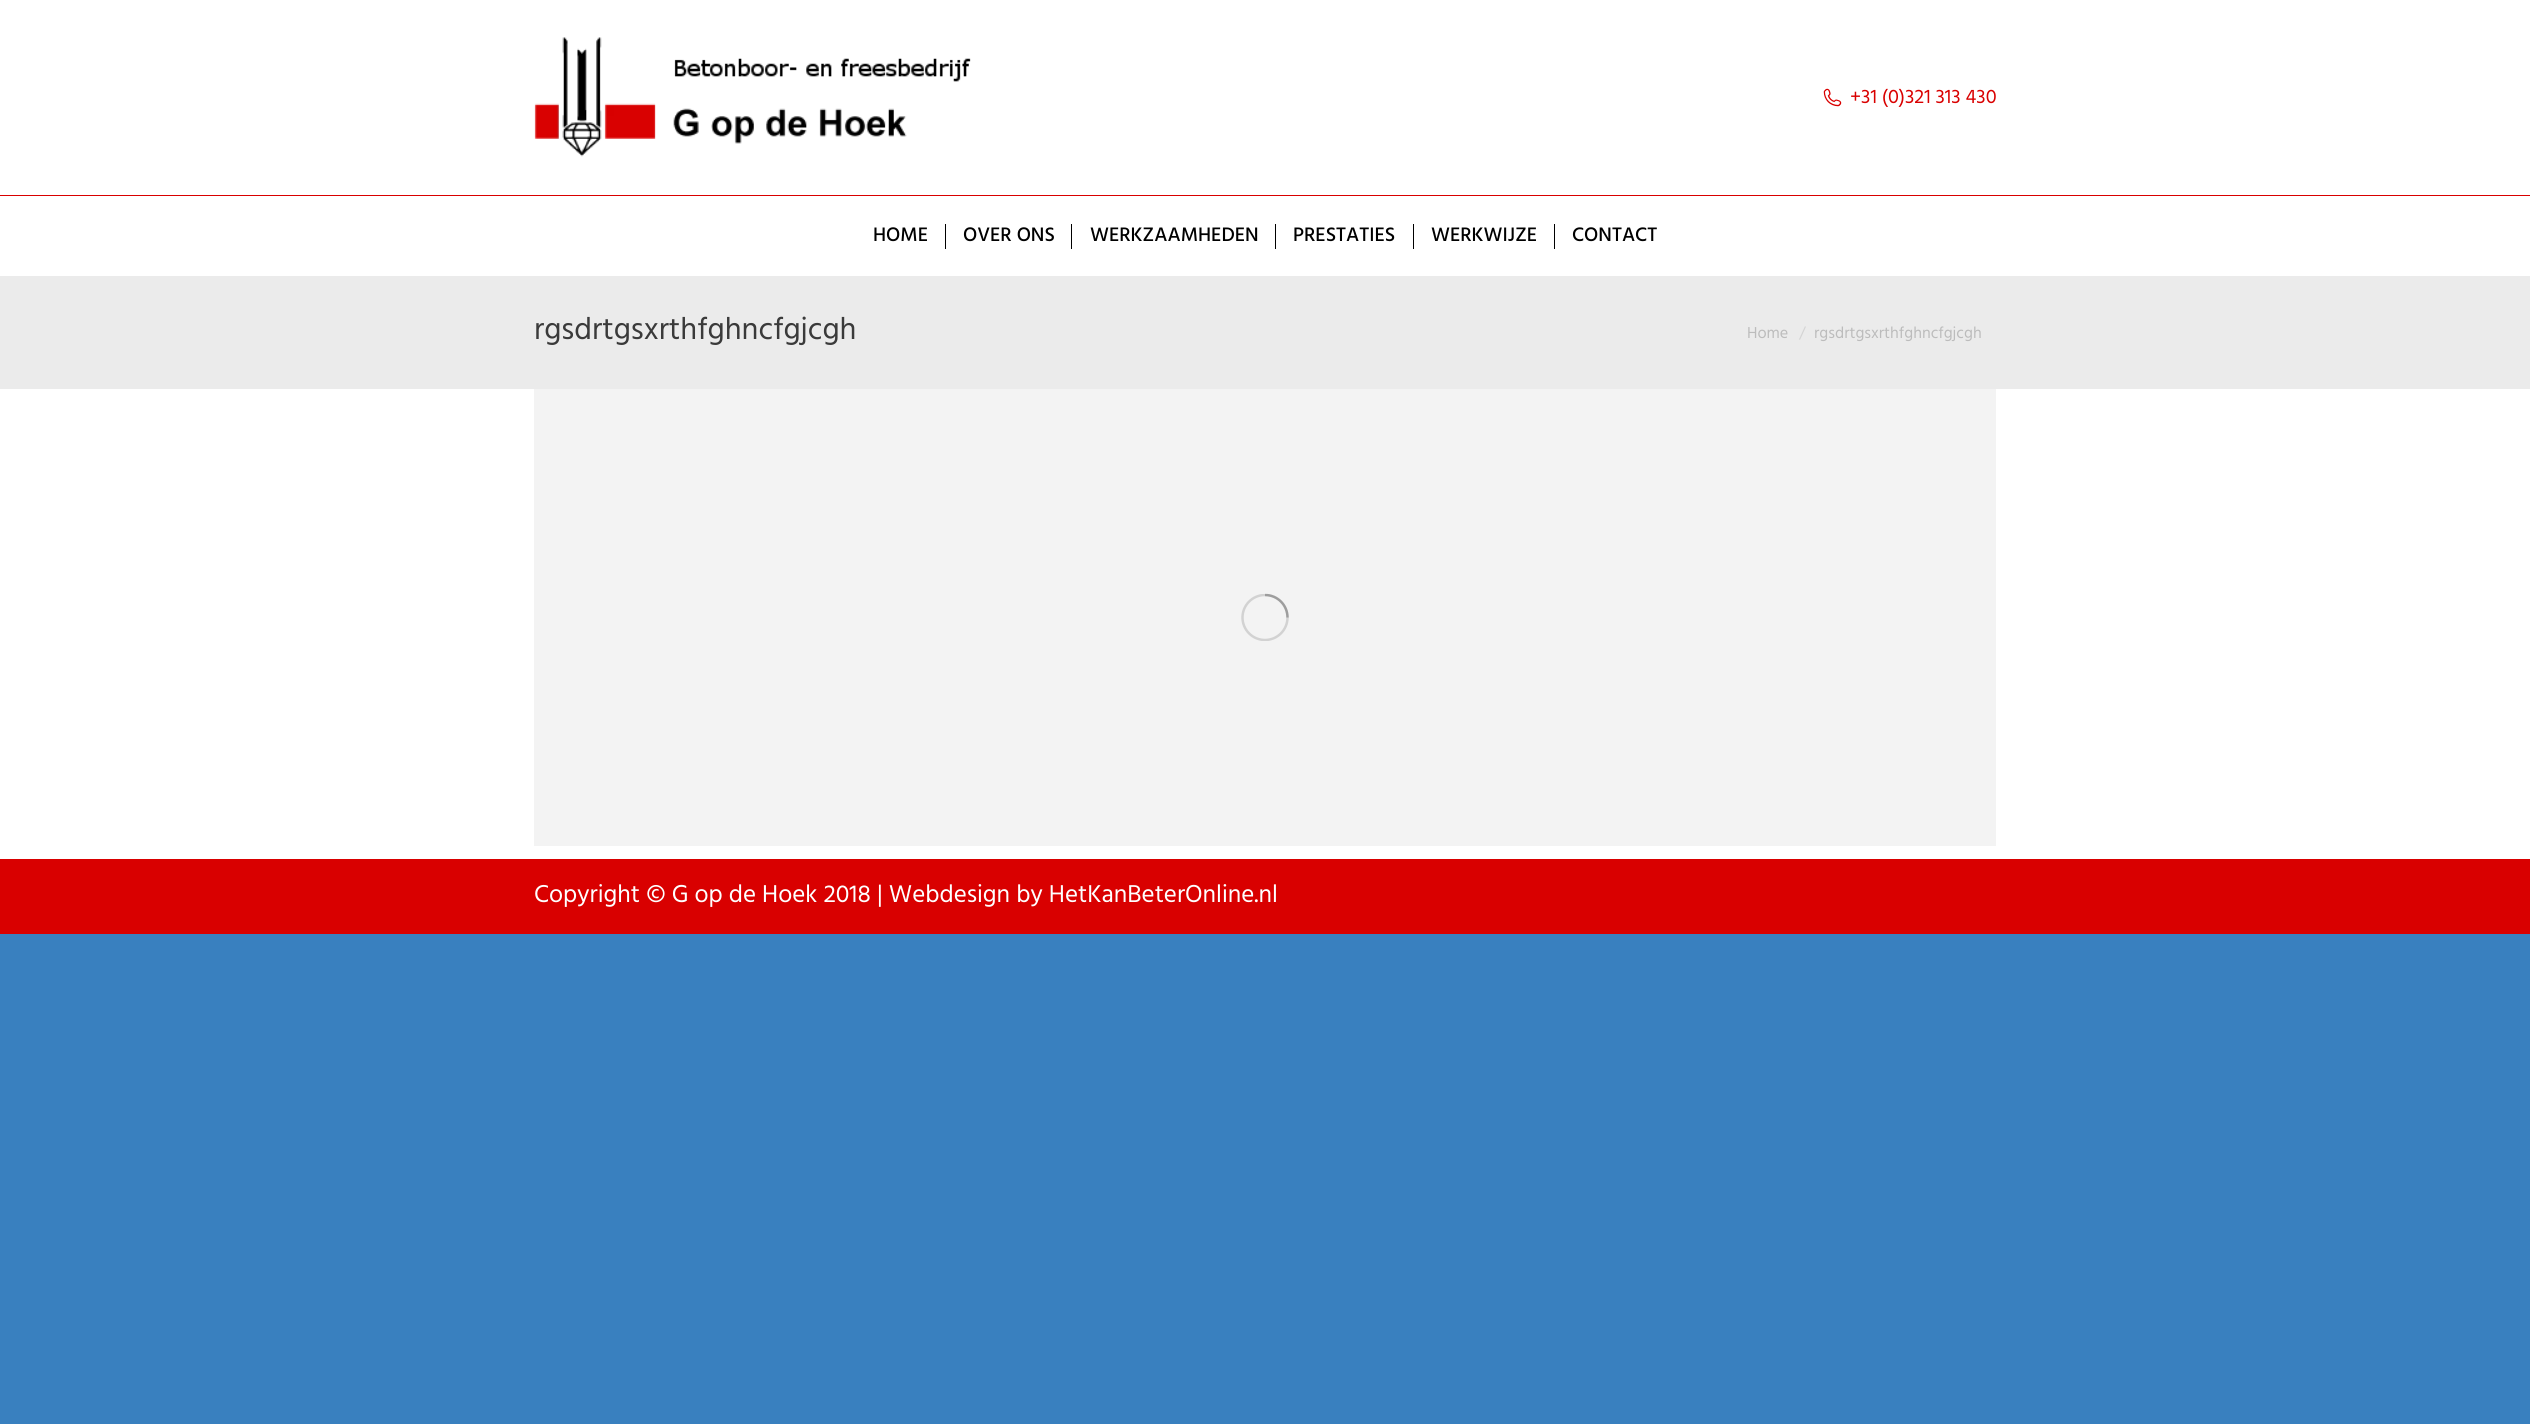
#include <cairo/cairo.h>
#include <math.h>
#include <stddef.h>


static void draw_image(cairo_t *cr, const char *path, double x, double y, double w, double h) {
  cairo_surface_t *image = cairo_image_surface_create_from_png(path);
  cairo_save(cr);
  cairo_set_source_surface(cr, image, x, y);
  cairo_rectangle(cr, x, y, w, h);
  cairo_fill(cr);
  cairo_restore(cr);
  cairo_surface_destroy(image);
}

static void draw(cairo_t *cr) {
  cairo_set_source_rgb(cr, 57 / 255.0, 128 / 255.0, 191 / 255.0);
  cairo_paint(cr);
  cairo_set_source_rgb(cr, 1, 1, 1);
  cairo_rectangle(cr, 0, 0, 2530, 859);
  cairo_fill(cr);
  draw_image(cr, "images/1.png", 534, 37, 437, 120);
  draw_image(cr, "images/2.png", 1823, 88, 19, 19);
  cairo_set_source_rgb(cr, 217 / 255.0, 0, 0);
  cairo_rectangle(cr, 0, 195, 2530, 1);
  cairo_fill(cr);
  cairo_set_source_rgb(cr, 0, 0, 0);
  cairo_rectangle(cr, 945, 224, 1, 25);
  cairo_fill(cr);
  cairo_rectangle(cr, 1071, 224, 1, 25);
  cairo_fill(cr);
  cairo_rectangle(cr, 1275, 224, 1, 25);
  cairo_fill(cr);
  cairo_rectangle(cr, 1413, 224, 1, 25);
  cairo_fill(cr);
  cairo_rectangle(cr, 1554, 224, 1, 25);
  cairo_fill(cr);
  cairo_set_source_rgb(cr, 235 / 255.0, 235 / 255.0, 235 / 255.0);
  cairo_rectangle(cr, 0, 276, 2530, 113);
  cairo_fill(cr);
  cairo_set_source_rgb(cr, 243 / 255.0, 243 / 255.0, 243 / 255.0);
  cairo_rectangle(cr, 534, 389, 1462, 457);
  cairo_fill(cr);
  cairo_save(cr);
  cairo_rectangle(cr, 1241, 594, 48, 47);
  cairo_clip(cr);
  cairo_arc(cr, 1265, 617.5, 22.5, 0, 2 * M_PI);
  cairo_set_source_rgb(cr, 210 / 255.0, 210 / 255.0, 210 / 255.0);
  cairo_set_line_width(cr, 2.5);
  cairo_stroke(cr);
  cairo_restore(cr);
  cairo_new_path(cr);
  cairo_move_to(cr, 1287.5, 617.5);
  cairo_curve_to(cr, 1287.5, 605, 1277.5, 595, 1265, 595);
  cairo_set_source_rgba(cr, 0, 0, 0, 0.25);
  cairo_set_line_width(cr, 2.5);
  cairo_stroke(cr);
  cairo_set_source_rgb(cr, 217 / 255.0, 0, 0);
  cairo_rectangle(cr, 0, 859, 2530, 75);
  cairo_fill(cr);
  cairo_select_font_face(cr, "Hind", CAIRO_FONT_SLANT_NORMAL, CAIRO_FONT_WEIGHT_NORMAL);
  cairo_set_font_size(cr, 20);
  cairo_move_to(cr, 1850, 103);
  cairo_show_text(cr, "+31 (0)321 313 430");
  cairo_select_font_face(cr, "Hind Medium", CAIRO_FONT_SLANT_NORMAL, CAIRO_FONT_WEIGHT_NORMAL);
  cairo_set_source_rgb(cr, 0, 0, 0);
  cairo_move_to(cr, 873, 241);
  cairo_show_text(cr, "HOME");
  cairo_move_to(cr, 963, 241);
  cairo_show_text(cr, "OVER ONS");
  cairo_move_to(cr, 1090, 241);
  cairo_show_text(cr, "WERKZAAMHEDEN");
  cairo_move_to(cr, 1293, 241);
  cairo_show_text(cr, "PRESTATIES");
  cairo_move_to(cr, 1431, 241);
  cairo_show_text(cr, "WERKWIJZE");
  cairo_move_to(cr, 1572, 241);
  cairo_show_text(cr, "CONTACT");
  cairo_select_font_face(cr, "Hind", CAIRO_FONT_SLANT_NORMAL, CAIRO_FONT_WEIGHT_NORMAL);
  cairo_set_font_size(cr, 31.25);
  cairo_set_source_rgb(cr, 58 / 255.0, 58 / 255.0, 58 / 255.0);
  cairo_move_to(cr, 534, 339);
  cairo_show_text(cr, "rgsdrtgsxrthfghncfgjcgh");
  cairo_set_font_size(cr, 16.25);
  cairo_set_source_rgb(cr, 188 / 255.0, 188 / 255.0, 188 / 255.0);
  cairo_move_to(cr, 1747, 338);
  cairo_show_text(cr, "Home");
  cairo_set_source_rgb(cr, 212 / 255.0, 212 / 255.0, 212 / 255.0);
  cairo_move_to(cr, 1799, 338);
  cairo_show_text(cr, "/");
  cairo_set_source_rgb(cr, 188 / 255.0, 188 / 255.0, 188 / 255.0);
  cairo_move_to(cr, 1814, 338);
  cairo_show_text(cr, "rgsdrtgsxrthfghncfgjcgh");
  cairo_set_font_size(cr, 25);
  cairo_set_source_rgb(cr, 1, 1, 1);
  cairo_move_to(cr, 534, 902);
  cairo_show_text(cr, "Copyright © G op de Hoek 2018 | Webdesign by HetKanBeterOnline.nl");
}

int main(void) {
  cairo_surface_t *surface = cairo_image_surface_create(CAIRO_FORMAT_RGB24, 2530, 1424);
  cairo_t *cr = cairo_create(surface);
  cairo_font_options_t *options = cairo_font_options_create();
  cairo_font_options_set_hint_metrics(options, CAIRO_HINT_METRICS_OFF);
  cairo_font_options_set_hint_style(options, CAIRO_HINT_STYLE_NONE);
  cairo_set_font_options(cr, options);
  cairo_set_miter_limit(cr, 4);
  draw(cr);
  cairo_surface_write_to_png(surface, "out.png");
  cairo_font_options_destroy(options);
  cairo_destroy(cr);
  cairo_surface_destroy(surface);
  return 0;
}
